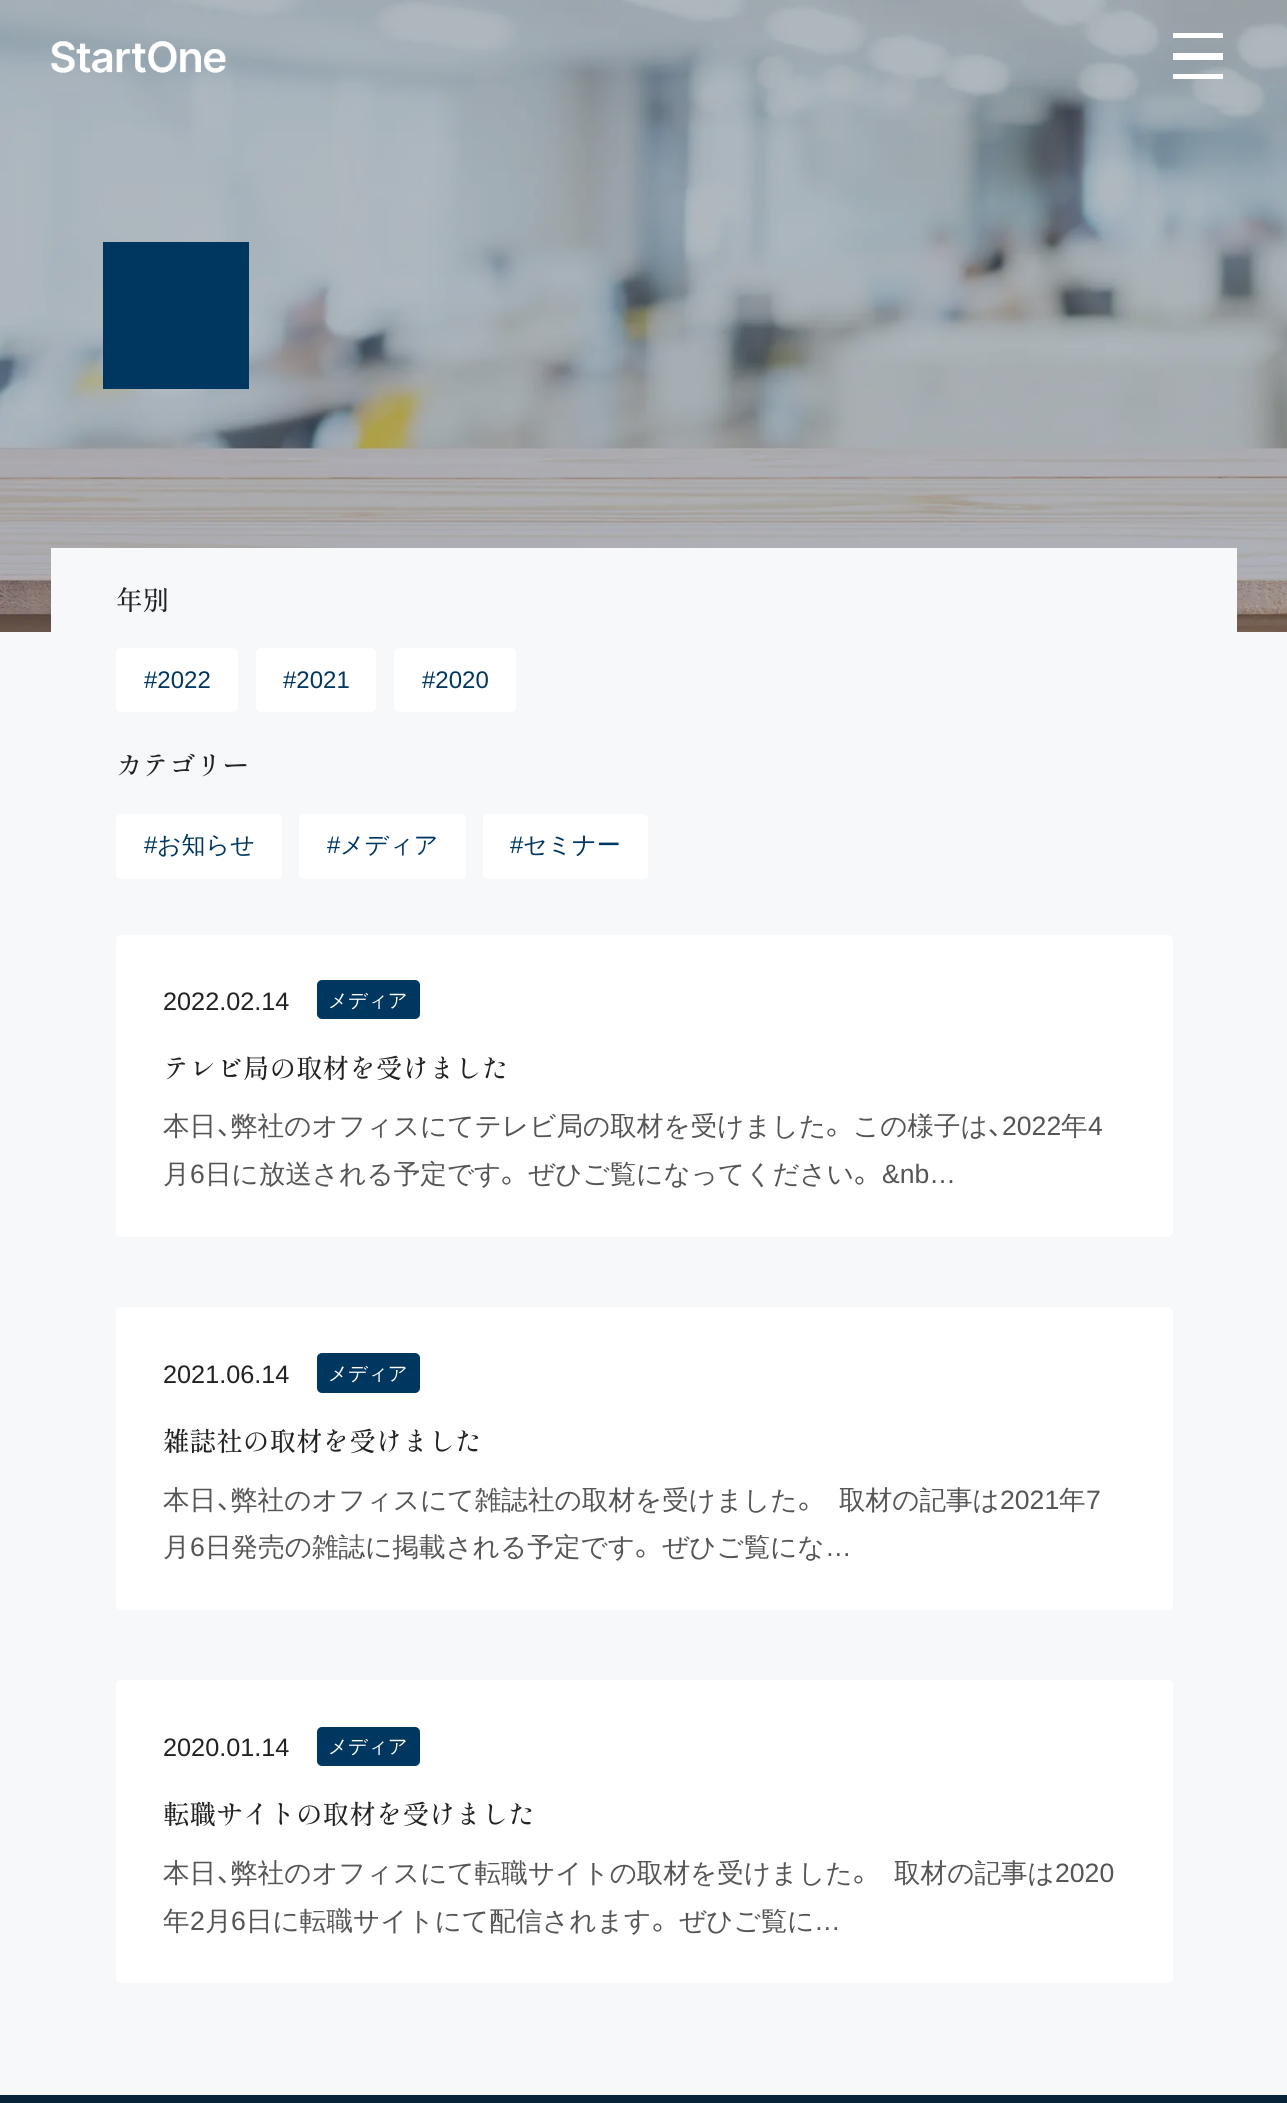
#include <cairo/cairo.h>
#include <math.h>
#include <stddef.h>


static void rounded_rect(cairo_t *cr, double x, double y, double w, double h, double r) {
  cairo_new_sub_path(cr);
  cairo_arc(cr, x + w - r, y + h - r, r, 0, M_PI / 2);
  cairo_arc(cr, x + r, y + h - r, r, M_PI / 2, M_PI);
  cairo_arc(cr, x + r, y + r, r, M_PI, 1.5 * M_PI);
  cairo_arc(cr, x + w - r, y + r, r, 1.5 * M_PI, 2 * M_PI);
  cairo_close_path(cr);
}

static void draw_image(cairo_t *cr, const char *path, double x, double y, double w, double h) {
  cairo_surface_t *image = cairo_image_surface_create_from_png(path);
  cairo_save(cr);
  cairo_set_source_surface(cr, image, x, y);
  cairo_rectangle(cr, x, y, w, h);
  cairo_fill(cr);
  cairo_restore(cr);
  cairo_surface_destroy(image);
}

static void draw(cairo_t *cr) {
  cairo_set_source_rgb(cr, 247 / 255.0, 248 / 255.0, 249 / 255.0);
  cairo_paint(cr);
  draw_image(cr, "images/2.png", 0, 0, 1287, 632);
  draw_image(cr, "images/1.png", 50, 41, 176, 32);
  cairo_set_source_rgb(cr, 1, 1, 1);
  cairo_rectangle(cr, 1173, 33, 50, 5);
  cairo_fill(cr);
  cairo_rectangle(cr, 1173, 53, 50, 7);
  cairo_fill(cr);
  cairo_rectangle(cr, 1173, 74, 50, 5);
  cairo_fill(cr);
  cairo_set_source_rgb(cr, 0, 55 / 255.0, 97 / 255.0);
  cairo_rectangle(cr, 103, 242, 146, 147);
  cairo_fill(cr);
  cairo_set_source_rgb(cr, 247 / 255.0, 248 / 255.0, 249 / 255.0);
  cairo_rectangle(cr, 51, 548, 1186, 84);
  cairo_fill(cr);
  cairo_set_source_rgb(cr, 1, 1, 1);
  rounded_rect(cr, 116, 648, 122, 64, 5);
  cairo_fill(cr);
  rounded_rect(cr, 256, 648, 120, 64, 5);
  cairo_fill(cr);
  rounded_rect(cr, 394, 648, 122, 64, 5);
  cairo_fill(cr);
  rounded_rect(cr, 116, 814, 166, 65, 5);
  cairo_fill(cr);
  rounded_rect(cr, 299, 814, 167, 65, 5);
  cairo_fill(cr);
  rounded_rect(cr, 483, 814, 165, 65, 5);
  cairo_fill(cr);
  rounded_rect(cr, 116, 935, 1057, 302, 5);
  cairo_fill(cr);
  cairo_set_source_rgb(cr, 0, 55 / 255.0, 97 / 255.0);
  rounded_rect(cr, 317, 980, 103, 39, 5);
  cairo_fill(cr);
  cairo_set_source_rgb(cr, 1, 1, 1);
  rounded_rect(cr, 116, 1307, 1057, 303, 5);
  cairo_fill(cr);
  cairo_set_source_rgb(cr, 0, 55 / 255.0, 97 / 255.0);
  rounded_rect(cr, 317, 1353, 103, 40, 5);
  cairo_fill(cr);
  cairo_set_source_rgb(cr, 1, 1, 1);
  rounded_rect(cr, 116, 1680, 1057, 303, 5);
  cairo_fill(cr);
  cairo_set_source_rgb(cr, 0, 55 / 255.0, 97 / 255.0);
  rounded_rect(cr, 317, 1727, 103, 39, 5);
  cairo_fill(cr);
  cairo_set_source_rgb(cr, 7 / 255.0, 35 / 255.0, 56 / 255.0);
  cairo_rectangle(cr, 0, 2095, 1287, 8);
  cairo_fill(cr);
  cairo_select_font_face(cr, "Shippori Mincho Medium", CAIRO_FONT_SLANT_NORMAL, CAIRO_FONT_WEIGHT_NORMAL);
  cairo_set_font_size(cr, 26.6);
  cairo_set_source_rgb(cr, 34 / 255.0, 34 / 255.0, 34 / 255.0);
  cairo_move_to(cr, 116, 610);
  cairo_show_text(cr, "年別");
  cairo_select_font_face(cr, "Liberation Sans", CAIRO_FONT_SLANT_NORMAL, CAIRO_FONT_WEIGHT_NORMAL);
  cairo_set_font_size(cr, 24);
  cairo_set_source_rgb(cr, 0, 55 / 255.0, 97 / 255.0);
  cairo_move_to(cr, 144, 688);
  cairo_show_text(cr, "#2022");
  cairo_move_to(cr, 283, 688);
  cairo_show_text(cr, "#2021");
  cairo_move_to(cr, 422, 688);
  cairo_show_text(cr, "#2020");
  cairo_select_font_face(cr, "Shippori Mincho Medium", CAIRO_FONT_SLANT_NORMAL, CAIRO_FONT_WEIGHT_NORMAL);
  cairo_set_font_size(cr, 26.6);
  cairo_set_source_rgb(cr, 34 / 255.0, 34 / 255.0, 34 / 255.0);
  cairo_move_to(cr, 116, 775);
  cairo_show_text(cr, "カテゴリー");
  cairo_select_font_face(cr, "Liberation Sans", CAIRO_FONT_SLANT_NORMAL, CAIRO_FONT_WEIGHT_NORMAL);
  cairo_set_font_size(cr, 24);
  cairo_set_source_rgb(cr, 0, 55 / 255.0, 97 / 255.0);
  cairo_move_to(cr, 144, 853);
  cairo_show_text(cr, "#");
  cairo_select_font_face(cr, "WenQuanYi Zen Hei Medium", CAIRO_FONT_SLANT_NORMAL, CAIRO_FONT_WEIGHT_NORMAL);
  cairo_move_to(cr, 157, 853);
  cairo_show_text(cr, "お知らせ");
  cairo_select_font_face(cr, "Liberation Sans", CAIRO_FONT_SLANT_NORMAL, CAIRO_FONT_WEIGHT_NORMAL);
  cairo_move_to(cr, 327, 853);
  cairo_show_text(cr, "#");
  cairo_select_font_face(cr, "WenQuanYi Zen Hei Medium", CAIRO_FONT_SLANT_NORMAL, CAIRO_FONT_WEIGHT_NORMAL);
  cairo_move_to(cr, 340, 853);
  cairo_show_text(cr, "メディア");
  cairo_select_font_face(cr, "Liberation Sans", CAIRO_FONT_SLANT_NORMAL, CAIRO_FONT_WEIGHT_NORMAL);
  cairo_move_to(cr, 510, 853);
  cairo_show_text(cr, "#");
  cairo_select_font_face(cr, "WenQuanYi Zen Hei Medium", CAIRO_FONT_SLANT_NORMAL, CAIRO_FONT_WEIGHT_NORMAL);
  cairo_move_to(cr, 523, 853);
  cairo_show_text(cr, "セミナー");
  cairo_select_font_face(cr, "Liberation Sans", CAIRO_FONT_SLANT_NORMAL, CAIRO_FONT_WEIGHT_NORMAL);
  cairo_set_font_size(cr, 25.25);
  cairo_set_source_rgb(cr, 34 / 255.0, 34 / 255.0, 34 / 255.0);
  cairo_move_to(cr, 163, 1010);
  cairo_show_text(cr, "2022.02.14");
  cairo_select_font_face(cr, "WenQuanYi Zen Hei Medium", CAIRO_FONT_SLANT_NORMAL, CAIRO_FONT_WEIGHT_NORMAL);
  cairo_set_font_size(cr, 19.5);
  cairo_set_source_rgb(cr, 1, 1, 1);
  cairo_move_to(cr, 328, 1007);
  cairo_show_text(cr, "メディア");
  cairo_select_font_face(cr, "Shippori Mincho Medium", CAIRO_FONT_SLANT_NORMAL, CAIRO_FONT_WEIGHT_NORMAL);
  cairo_set_font_size(cr, 26.6);
  cairo_set_source_rgb(cr, 34 / 255.0, 34 / 255.0, 34 / 255.0);
  cairo_move_to(cr, 163, 1078);
  cairo_show_text(cr, "テレビ局の取材を受けました");
  cairo_select_font_face(cr, "WenQuanYi Zen Hei Medium", CAIRO_FONT_SLANT_NORMAL, CAIRO_FONT_WEIGHT_NORMAL);
  cairo_set_source_rgb(cr, 85 / 255.0, 85 / 255.0, 85 / 255.0);
  cairo_move_to(cr, 163, 1135);
  cairo_show_text(cr, "本日");
  cairo_select_font_face(cr, "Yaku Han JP", CAIRO_FONT_SLANT_NORMAL, CAIRO_FONT_WEIGHT_NORMAL);
  cairo_move_to(cr, 217, 1135);
  cairo_show_text(cr, "、");
  cairo_select_font_face(cr, "WenQuanYi Zen Hei Medium", CAIRO_FONT_SLANT_NORMAL, CAIRO_FONT_WEIGHT_NORMAL);
  cairo_move_to(cr, 231, 1135);
  cairo_show_text(cr, "弊社のオフィスにてテレビ局の取材を受けました");
  cairo_select_font_face(cr, "Yaku Han JP", CAIRO_FONT_SLANT_NORMAL, CAIRO_FONT_WEIGHT_NORMAL);
  cairo_move_to(cr, 826, 1135);
  cairo_show_text(cr, "。");
  cairo_select_font_face(cr, "WenQuanYi Zen Hei Medium", CAIRO_FONT_SLANT_NORMAL, CAIRO_FONT_WEIGHT_NORMAL);
  cairo_move_to(cr, 853, 1135);
  cairo_show_text(cr, "この様子は");
  cairo_select_font_face(cr, "Yaku Han JP", CAIRO_FONT_SLANT_NORMAL, CAIRO_FONT_WEIGHT_NORMAL);
  cairo_move_to(cr, 988, 1135);
  cairo_show_text(cr, "、");
  cairo_select_font_face(cr, "Liberation Sans", CAIRO_FONT_SLANT_NORMAL, CAIRO_FONT_WEIGHT_NORMAL);
  cairo_move_to(cr, 1002, 1135);
  cairo_show_text(cr, "2022");
  cairo_select_font_face(cr, "WenQuanYi Zen Hei Medium", CAIRO_FONT_SLANT_NORMAL, CAIRO_FONT_WEIGHT_NORMAL);
  cairo_move_to(cr, 1061, 1135);
  cairo_show_text(cr, "年");
  cairo_select_font_face(cr, "Liberation Sans", CAIRO_FONT_SLANT_NORMAL, CAIRO_FONT_WEIGHT_NORMAL);
  cairo_move_to(cr, 1088, 1135);
  cairo_show_text(cr, "4");
  cairo_select_font_face(cr, "WenQuanYi Zen Hei Medium", CAIRO_FONT_SLANT_NORMAL, CAIRO_FONT_WEIGHT_NORMAL);
  cairo_move_to(cr, 163, 1183);
  cairo_show_text(cr, "月");
  cairo_select_font_face(cr, "Liberation Sans", CAIRO_FONT_SLANT_NORMAL, CAIRO_FONT_WEIGHT_NORMAL);
  cairo_move_to(cr, 190, 1183);
  cairo_show_text(cr, "6");
  cairo_select_font_face(cr, "WenQuanYi Zen Hei Medium", CAIRO_FONT_SLANT_NORMAL, CAIRO_FONT_WEIGHT_NORMAL);
  cairo_move_to(cr, 205, 1183);
  cairo_show_text(cr, "日に放送される予定です");
  cairo_select_font_face(cr, "Yaku Han JP", CAIRO_FONT_SLANT_NORMAL, CAIRO_FONT_WEIGHT_NORMAL);
  cairo_move_to(cr, 501, 1183);
  cairo_show_text(cr, "。");
  cairo_select_font_face(cr, "WenQuanYi Zen Hei Medium", CAIRO_FONT_SLANT_NORMAL, CAIRO_FONT_WEIGHT_NORMAL);
  cairo_move_to(cr, 528, 1183);
  cairo_show_text(cr, "ぜひご覧になってください");
  cairo_select_font_face(cr, "Yaku Han JP", CAIRO_FONT_SLANT_NORMAL, CAIRO_FONT_WEIGHT_NORMAL);
  cairo_move_to(cr, 854, 1183);
  cairo_show_text(cr, "。");
  cairo_select_font_face(cr, "Liberation Sans", CAIRO_FONT_SLANT_NORMAL, CAIRO_FONT_WEIGHT_NORMAL);
  cairo_move_to(cr, 882, 1183);
  cairo_show_text(cr, "&nb…");
  cairo_set_font_size(cr, 25.25);
  cairo_set_source_rgb(cr, 34 / 255.0, 34 / 255.0, 34 / 255.0);
  cairo_move_to(cr, 163, 1383);
  cairo_show_text(cr, "2021.06.14");
  cairo_select_font_face(cr, "WenQuanYi Zen Hei Medium", CAIRO_FONT_SLANT_NORMAL, CAIRO_FONT_WEIGHT_NORMAL);
  cairo_set_font_size(cr, 19.5);
  cairo_set_source_rgb(cr, 1, 1, 1);
  cairo_move_to(cr, 328, 1380);
  cairo_show_text(cr, "メディア");
  cairo_select_font_face(cr, "Shippori Mincho Medium", CAIRO_FONT_SLANT_NORMAL, CAIRO_FONT_WEIGHT_NORMAL);
  cairo_set_font_size(cr, 26.6);
  cairo_set_source_rgb(cr, 34 / 255.0, 34 / 255.0, 34 / 255.0);
  cairo_move_to(cr, 163, 1451);
  cairo_show_text(cr, "雑誌社の取材を受けました");
  cairo_select_font_face(cr, "WenQuanYi Zen Hei Medium", CAIRO_FONT_SLANT_NORMAL, CAIRO_FONT_WEIGHT_NORMAL);
  cairo_set_source_rgb(cr, 85 / 255.0, 85 / 255.0, 85 / 255.0);
  cairo_move_to(cr, 163, 1509);
  cairo_show_text(cr, "本日");
  cairo_select_font_face(cr, "Yaku Han JP", CAIRO_FONT_SLANT_NORMAL, CAIRO_FONT_WEIGHT_NORMAL);
  cairo_move_to(cr, 217, 1509);
  cairo_show_text(cr, "、");
  cairo_select_font_face(cr, "WenQuanYi Zen Hei Medium", CAIRO_FONT_SLANT_NORMAL, CAIRO_FONT_WEIGHT_NORMAL);
  cairo_move_to(cr, 231, 1509);
  cairo_show_text(cr, "弊社のオフィスにて雑誌社の取材を受けました");
  cairo_select_font_face(cr, "Yaku Han JP", CAIRO_FONT_SLANT_NORMAL, CAIRO_FONT_WEIGHT_NORMAL);
  cairo_move_to(cr, 798, 1509);
  cairo_show_text(cr, "。");
  cairo_select_font_face(cr, "WenQuanYi Zen Hei Medium", CAIRO_FONT_SLANT_NORMAL, CAIRO_FONT_WEIGHT_NORMAL);
  cairo_move_to(cr, 839, 1509);
  cairo_show_text(cr, "取材の記事は");
  cairo_select_font_face(cr, "Liberation Sans", CAIRO_FONT_SLANT_NORMAL, CAIRO_FONT_WEIGHT_NORMAL);
  cairo_move_to(cr, 1000, 1509);
  cairo_show_text(cr, "2021");
  cairo_select_font_face(cr, "WenQuanYi Zen Hei Medium", CAIRO_FONT_SLANT_NORMAL, CAIRO_FONT_WEIGHT_NORMAL);
  cairo_move_to(cr, 1059, 1509);
  cairo_show_text(cr, "年");
  cairo_select_font_face(cr, "Liberation Sans", CAIRO_FONT_SLANT_NORMAL, CAIRO_FONT_WEIGHT_NORMAL);
  cairo_move_to(cr, 1086, 1509);
  cairo_show_text(cr, "7");
  cairo_select_font_face(cr, "WenQuanYi Zen Hei Medium", CAIRO_FONT_SLANT_NORMAL, CAIRO_FONT_WEIGHT_NORMAL);
  cairo_move_to(cr, 163, 1556);
  cairo_show_text(cr, "月");
  cairo_select_font_face(cr, "Liberation Sans", CAIRO_FONT_SLANT_NORMAL, CAIRO_FONT_WEIGHT_NORMAL);
  cairo_move_to(cr, 190, 1556);
  cairo_show_text(cr, "6");
  cairo_select_font_face(cr, "WenQuanYi Zen Hei Medium", CAIRO_FONT_SLANT_NORMAL, CAIRO_FONT_WEIGHT_NORMAL);
  cairo_move_to(cr, 205, 1556);
  cairo_show_text(cr, "日発売の雑誌に掲載される予定です");
  cairo_select_font_face(cr, "Yaku Han JP", CAIRO_FONT_SLANT_NORMAL, CAIRO_FONT_WEIGHT_NORMAL);
  cairo_move_to(cr, 635, 1556);
  cairo_show_text(cr, "。");
  cairo_select_font_face(cr, "WenQuanYi Zen Hei Medium", CAIRO_FONT_SLANT_NORMAL, CAIRO_FONT_WEIGHT_NORMAL);
  cairo_move_to(cr, 662, 1556);
  cairo_show_text(cr, "ぜひご覧にな");
  cairo_select_font_face(cr, "Liberation Sans", CAIRO_FONT_SLANT_NORMAL, CAIRO_FONT_WEIGHT_NORMAL);
  cairo_move_to(cr, 825, 1556);
  cairo_show_text(cr, "…");
  cairo_set_font_size(cr, 25.25);
  cairo_set_source_rgb(cr, 34 / 255.0, 34 / 255.0, 34 / 255.0);
  cairo_move_to(cr, 163, 1756);
  cairo_show_text(cr, "2020.01.14");
  cairo_select_font_face(cr, "WenQuanYi Zen Hei Medium", CAIRO_FONT_SLANT_NORMAL, CAIRO_FONT_WEIGHT_NORMAL);
  cairo_set_font_size(cr, 19.5);
  cairo_set_source_rgb(cr, 1, 1, 1);
  cairo_move_to(cr, 328, 1753);
  cairo_show_text(cr, "メディア");
  cairo_select_font_face(cr, "Shippori Mincho Medium", CAIRO_FONT_SLANT_NORMAL, CAIRO_FONT_WEIGHT_NORMAL);
  cairo_set_font_size(cr, 26.6);
  cairo_set_source_rgb(cr, 34 / 255.0, 34 / 255.0, 34 / 255.0);
  cairo_move_to(cr, 163, 1824);
  cairo_show_text(cr, "転職サイトの取材を受けました");
  cairo_select_font_face(cr, "WenQuanYi Zen Hei Medium", CAIRO_FONT_SLANT_NORMAL, CAIRO_FONT_WEIGHT_NORMAL);
  cairo_set_source_rgb(cr, 85 / 255.0, 85 / 255.0, 85 / 255.0);
  cairo_move_to(cr, 163, 1882);
  cairo_show_text(cr, "本日");
  cairo_select_font_face(cr, "Yaku Han JP", CAIRO_FONT_SLANT_NORMAL, CAIRO_FONT_WEIGHT_NORMAL);
  cairo_move_to(cr, 217, 1882);
  cairo_show_text(cr, "、");
  cairo_select_font_face(cr, "WenQuanYi Zen Hei Medium", CAIRO_FONT_SLANT_NORMAL, CAIRO_FONT_WEIGHT_NORMAL);
  cairo_move_to(cr, 231, 1882);
  cairo_show_text(cr, "弊社のオフィスにて転職サイトの取材を受けました");
  cairo_select_font_face(cr, "Yaku Han JP", CAIRO_FONT_SLANT_NORMAL, CAIRO_FONT_WEIGHT_NORMAL);
  cairo_move_to(cr, 853, 1882);
  cairo_show_text(cr, "。");
  cairo_select_font_face(cr, "WenQuanYi Zen Hei Medium", CAIRO_FONT_SLANT_NORMAL, CAIRO_FONT_WEIGHT_NORMAL);
  cairo_move_to(cr, 894, 1882);
  cairo_show_text(cr, "取材の記事は");
  cairo_select_font_face(cr, "Liberation Sans", CAIRO_FONT_SLANT_NORMAL, CAIRO_FONT_WEIGHT_NORMAL);
  cairo_move_to(cr, 1055, 1882);
  cairo_show_text(cr, "2020");
  cairo_select_font_face(cr, "WenQuanYi Zen Hei Medium", CAIRO_FONT_SLANT_NORMAL, CAIRO_FONT_WEIGHT_NORMAL);
  cairo_move_to(cr, 163, 1930);
  cairo_show_text(cr, "年");
  cairo_select_font_face(cr, "Liberation Sans", CAIRO_FONT_SLANT_NORMAL, CAIRO_FONT_WEIGHT_NORMAL);
  cairo_move_to(cr, 190, 1930);
  cairo_show_text(cr, "2");
  cairo_select_font_face(cr, "WenQuanYi Zen Hei Medium", CAIRO_FONT_SLANT_NORMAL, CAIRO_FONT_WEIGHT_NORMAL);
  cairo_move_to(cr, 205, 1930);
  cairo_show_text(cr, "月");
  cairo_select_font_face(cr, "Liberation Sans", CAIRO_FONT_SLANT_NORMAL, CAIRO_FONT_WEIGHT_NORMAL);
  cairo_move_to(cr, 231, 1930);
  cairo_show_text(cr, "6");
  cairo_select_font_face(cr, "WenQuanYi Zen Hei Medium", CAIRO_FONT_SLANT_NORMAL, CAIRO_FONT_WEIGHT_NORMAL);
  cairo_move_to(cr, 246, 1930);
  cairo_show_text(cr, "日に転職サイトにて配信されます");
  cairo_select_font_face(cr, "Yaku Han JP", CAIRO_FONT_SLANT_NORMAL, CAIRO_FONT_WEIGHT_NORMAL);
  cairo_move_to(cr, 652, 1930);
  cairo_show_text(cr, "。");
  cairo_select_font_face(cr, "WenQuanYi Zen Hei Medium", CAIRO_FONT_SLANT_NORMAL, CAIRO_FONT_WEIGHT_NORMAL);
  cairo_move_to(cr, 679, 1930);
  cairo_show_text(cr, "ぜひご覧に");
  cairo_select_font_face(cr, "Liberation Sans", CAIRO_FONT_SLANT_NORMAL, CAIRO_FONT_WEIGHT_NORMAL);
  cairo_move_to(cr, 814, 1930);
  cairo_show_text(cr, "…");
}

int main(void) {
  cairo_surface_t *surface = cairo_image_surface_create(CAIRO_FORMAT_RGB24, 1287, 2103);
  cairo_t *cr = cairo_create(surface);
  cairo_font_options_t *options = cairo_font_options_create();
  cairo_font_options_set_hint_metrics(options, CAIRO_HINT_METRICS_OFF);
  cairo_font_options_set_hint_style(options, CAIRO_HINT_STYLE_NONE);
  cairo_set_font_options(cr, options);
  cairo_set_miter_limit(cr, 4);
  draw(cr);
  cairo_surface_write_to_png(surface, "out.png");
  cairo_font_options_destroy(options);
  cairo_destroy(cr);
  cairo_surface_destroy(surface);
  return 0;
}
